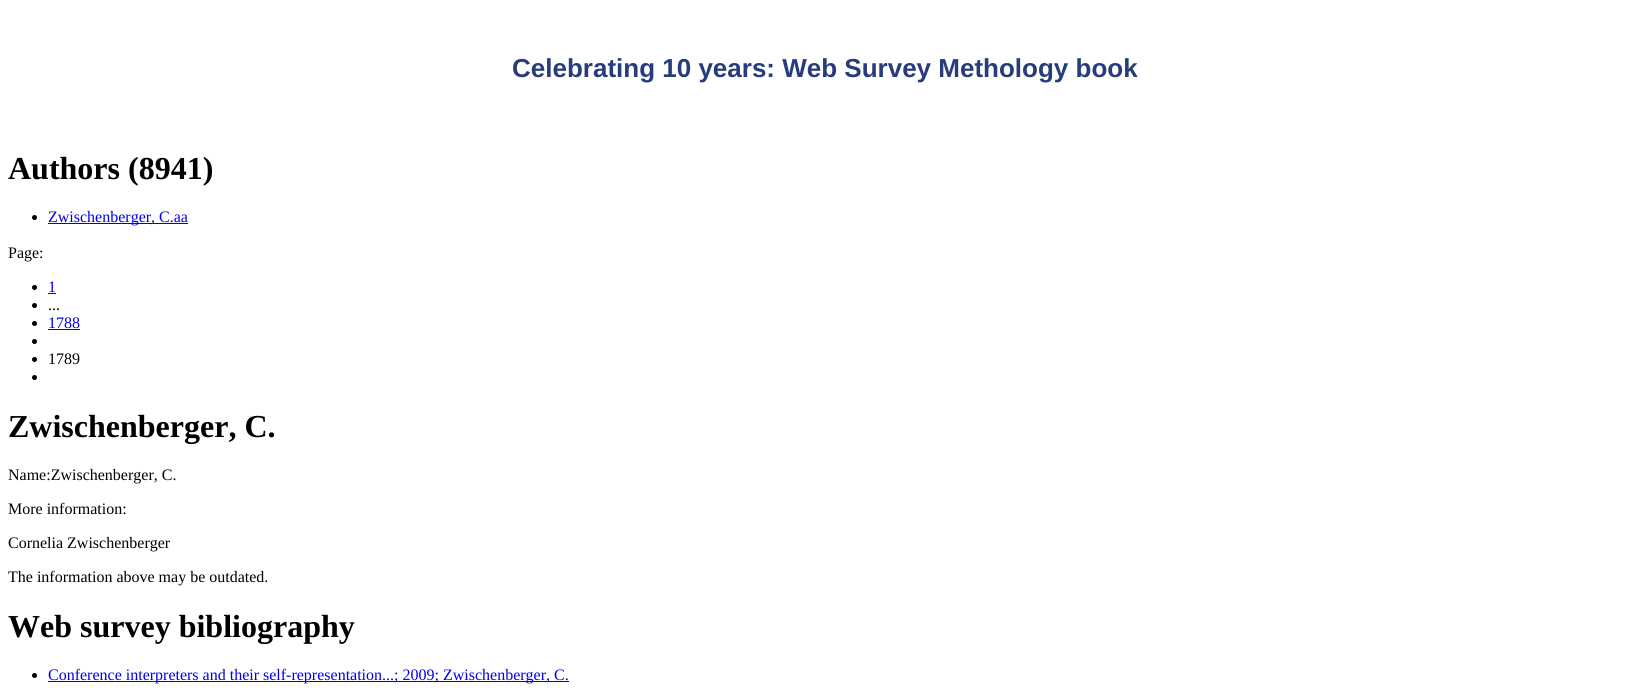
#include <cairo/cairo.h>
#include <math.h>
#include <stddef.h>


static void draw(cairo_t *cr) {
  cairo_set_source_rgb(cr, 1, 1, 1);
  cairo_paint(cr);
  cairo_set_source_rgb(cr, 0, 0, 0);
  cairo_arc(cr, 34.5, 217.5, 2.5, 0, 2 * M_PI);
  cairo_fill(cr);
  cairo_set_source_rgb(cr, 0, 0, 238 / 255.0);
  cairo_rectangle(cr, 48, 223, 140, 1);
  cairo_fill(cr);
  cairo_set_source_rgb(cr, 0, 0, 0);
  cairo_arc(cr, 34.5, 287.5, 2.5, 0, 2 * M_PI);
  cairo_fill(cr);
  cairo_set_source_rgb(cr, 0, 0, 238 / 255.0);
  cairo_rectangle(cr, 48, 293, 8, 1);
  cairo_fill(cr);
  cairo_set_source_rgb(cr, 0, 0, 0);
  cairo_arc(cr, 34.5, 305.5, 2.5, 0, 2 * M_PI);
  cairo_fill(cr);
  cairo_arc(cr, 34.5, 323.5, 2.5, 0, 2 * M_PI);
  cairo_fill(cr);
  cairo_set_source_rgb(cr, 0, 0, 238 / 255.0);
  cairo_rectangle(cr, 48, 329, 32, 1);
  cairo_fill(cr);
  cairo_set_source_rgb(cr, 0, 0, 0);
  cairo_arc(cr, 34.5, 341.5, 2.5, 0, 2 * M_PI);
  cairo_fill(cr);
  cairo_arc(cr, 34.5, 359.5, 2.5, 0, 2 * M_PI);
  cairo_fill(cr);
  cairo_arc(cr, 34.5, 377.5, 2.5, 0, 2 * M_PI);
  cairo_fill(cr);
  cairo_arc(cr, 34.5, 675.5, 2.5, 0, 2 * M_PI);
  cairo_fill(cr);
  cairo_set_source_rgb(cr, 0, 0, 238 / 255.0);
  cairo_rectangle(cr, 48, 681, 521, 1);
  cairo_fill(cr);
  cairo_select_font_face(cr, "Liberation Sans", CAIRO_FONT_SLANT_NORMAL, CAIRO_FONT_WEIGHT_BOLD);
  cairo_set_font_size(cr, 26);
  cairo_set_source_rgb(cr, 39 / 255.0, 60 / 255.0, 122 / 255.0);
  cairo_move_to(cr, 512, 77);
  cairo_show_text(cr, "Celebrating 10 years: Web Survey Methology book");
  cairo_select_font_face(cr, "Liberation Serif", CAIRO_FONT_SLANT_NORMAL, CAIRO_FONT_WEIGHT_BOLD);
  cairo_set_font_size(cr, 32);
  cairo_set_source_rgb(cr, 0, 0, 0);
  cairo_move_to(cr, 8, 179);
  cairo_show_text(cr, "Authors (8941)");
  cairo_select_font_face(cr, "Liberation Serif", CAIRO_FONT_SLANT_NORMAL, CAIRO_FONT_WEIGHT_NORMAL);
  cairo_set_font_size(cr, 16);
  cairo_set_source_rgb(cr, 0, 0, 238 / 255.0);
  cairo_move_to(cr, 48, 222);
  cairo_show_text(cr, "Zwischenberger, C.aa");
  cairo_set_source_rgb(cr, 0, 0, 0);
  cairo_move_to(cr, 8, 258);
  cairo_show_text(cr, "Page:");
  cairo_set_source_rgb(cr, 0, 0, 238 / 255.0);
  cairo_move_to(cr, 48, 292);
  cairo_show_text(cr, "1");
  cairo_set_source_rgb(cr, 0, 0, 0);
  cairo_move_to(cr, 48, 310);
  cairo_show_text(cr, "...");
  cairo_set_source_rgb(cr, 0, 0, 238 / 255.0);
  cairo_move_to(cr, 48, 328);
  cairo_show_text(cr, "1788");
  cairo_set_source_rgb(cr, 0, 0, 0);
  cairo_move_to(cr, 48, 364);
  cairo_show_text(cr, "1789");
  cairo_select_font_face(cr, "Liberation Serif", CAIRO_FONT_SLANT_NORMAL, CAIRO_FONT_WEIGHT_BOLD);
  cairo_set_font_size(cr, 32);
  cairo_move_to(cr, 8, 437);
  cairo_show_text(cr, "Zwischenberger, C.");
  cairo_select_font_face(cr, "Liberation Serif", CAIRO_FONT_SLANT_NORMAL, CAIRO_FONT_WEIGHT_NORMAL);
  cairo_set_font_size(cr, 16);
  cairo_move_to(cr, 8, 480);
  cairo_show_text(cr, "Name:Zwischenberger, C.");
  cairo_move_to(cr, 8, 514);
  cairo_show_text(cr, "More information:");
  cairo_move_to(cr, 8, 548);
  cairo_show_text(cr, "Cornelia Zwischenberger");
  cairo_move_to(cr, 8, 582);
  cairo_show_text(cr, "The information above may be outdated.");
  cairo_select_font_face(cr, "Liberation Serif", CAIRO_FONT_SLANT_NORMAL, CAIRO_FONT_WEIGHT_BOLD);
  cairo_set_font_size(cr, 32);
  cairo_move_to(cr, 8, 637);
  cairo_show_text(cr, "Web survey bibliography");
  cairo_select_font_face(cr, "Liberation Serif", CAIRO_FONT_SLANT_NORMAL, CAIRO_FONT_WEIGHT_NORMAL);
  cairo_set_font_size(cr, 16);
  cairo_set_source_rgb(cr, 0, 0, 238 / 255.0);
  cairo_move_to(cr, 48, 680);
  cairo_show_text(cr, "Conference interpreters and their self-representation...; 2009; Zwischenberger, C.");
}

int main(void) {
  cairo_surface_t *surface = cairo_image_surface_create(CAIRO_FORMAT_RGB24, 1649, 692);
  cairo_t *cr = cairo_create(surface);
  cairo_font_options_t *options = cairo_font_options_create();
  cairo_font_options_set_hint_metrics(options, CAIRO_HINT_METRICS_OFF);
  cairo_font_options_set_hint_style(options, CAIRO_HINT_STYLE_NONE);
  cairo_set_font_options(cr, options);
  cairo_set_miter_limit(cr, 4);
  draw(cr);
  cairo_surface_write_to_png(surface, "out.png");
  cairo_font_options_destroy(options);
  cairo_destroy(cr);
  cairo_surface_destroy(surface);
  return 0;
}
